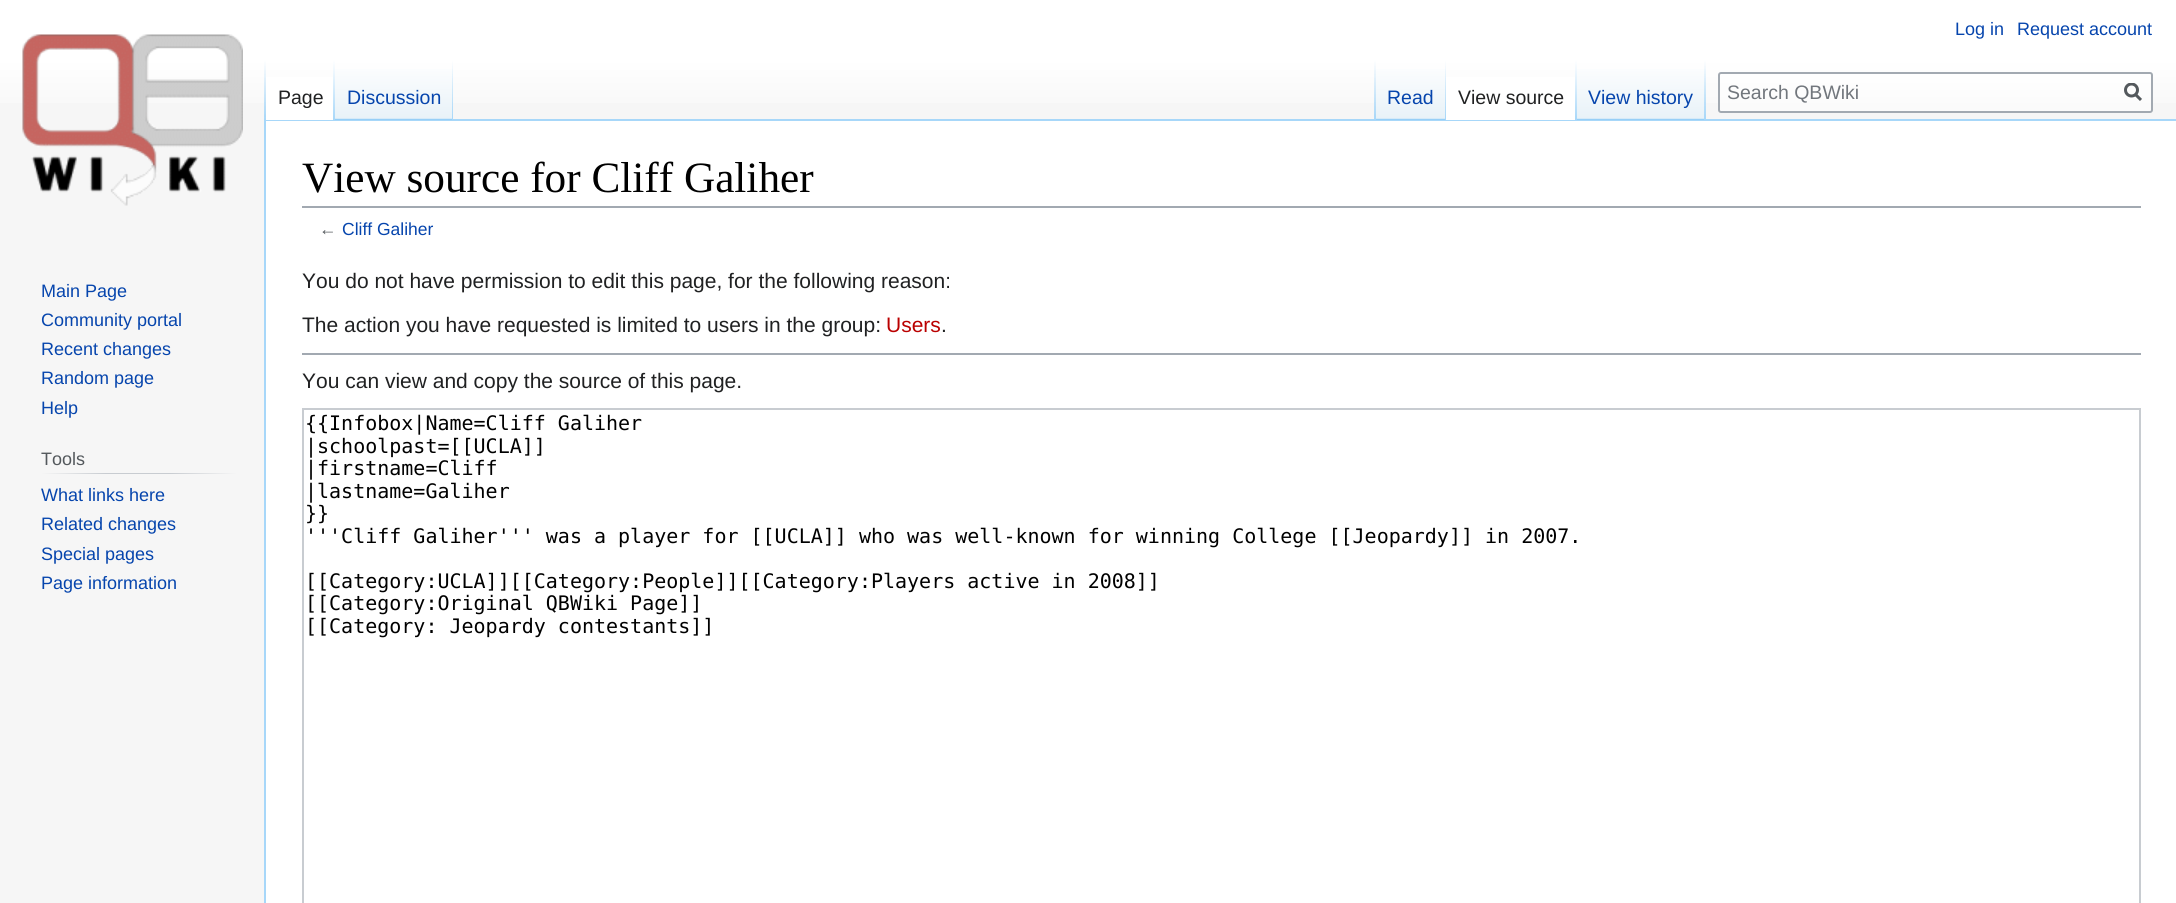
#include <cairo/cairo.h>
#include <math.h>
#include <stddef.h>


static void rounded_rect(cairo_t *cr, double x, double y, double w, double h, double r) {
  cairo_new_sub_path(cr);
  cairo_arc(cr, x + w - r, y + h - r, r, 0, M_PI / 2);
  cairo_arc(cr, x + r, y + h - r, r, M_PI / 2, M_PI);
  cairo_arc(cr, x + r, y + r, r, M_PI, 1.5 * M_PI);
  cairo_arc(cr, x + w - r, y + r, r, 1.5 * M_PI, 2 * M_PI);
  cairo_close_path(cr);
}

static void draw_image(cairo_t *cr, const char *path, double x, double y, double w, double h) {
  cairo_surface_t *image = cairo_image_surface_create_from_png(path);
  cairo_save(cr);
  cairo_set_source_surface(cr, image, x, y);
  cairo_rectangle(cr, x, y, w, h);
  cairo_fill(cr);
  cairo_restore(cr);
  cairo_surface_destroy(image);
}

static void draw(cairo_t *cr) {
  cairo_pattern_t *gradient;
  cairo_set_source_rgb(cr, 246 / 255.0, 246 / 255.0, 246 / 255.0);
  cairo_paint(cr);
  gradient = cairo_pattern_create_linear(1088, 0, 1088, 120);
  cairo_pattern_add_color_stop_rgba(gradient, 0.5, 1, 1, 1, 1);
  cairo_pattern_add_color_stop_rgba(gradient, 1, 246 / 255.0, 246 / 255.0, 246 / 255.0, 1);
  cairo_set_source(cr, gradient);
  cairo_pattern_destroy(gradient);
  cairo_rectangle(cr, 0, 0, 2176, 103);
  cairo_fill(cr);
  cairo_set_source_rgb(cr, 167 / 255.0, 215 / 255.0, 249 / 255.0);
  cairo_rectangle(cr, 264, 119, 1912, 2);
  cairo_fill(cr);
  cairo_rectangle(cr, 264, 119, 2, 784);
  cairo_fill(cr);
  gradient = cairo_pattern_create_linear(265, 60, 265, 120);
  cairo_pattern_add_color_stop_rgba(gradient, 0, 167 / 255.0, 215 / 255.0, 249 / 255.0, 0);
  cairo_pattern_add_color_stop_rgba(gradient, 1, 167 / 255.0, 215 / 255.0, 249 / 255.0, 1);
  cairo_set_source(cr, gradient);
  cairo_pattern_destroy(gradient);
  cairo_rectangle(cr, 264, 60, 2, 60);
  cairo_fill(cr);
  cairo_set_source_rgb(cr, 1, 1, 1);
  cairo_rectangle(cr, 266, 77, 67, 43);
  cairo_fill(cr);
  gradient = cairo_pattern_create_linear(334, 60, 334, 120);
  cairo_pattern_add_color_stop_rgba(gradient, 0, 1, 1, 1, 1);
  cairo_pattern_add_color_stop_rgba(gradient, 1, 167 / 255.0, 215 / 255.0, 249 / 255.0, 1);
  cairo_set_source(cr, gradient);
  cairo_pattern_destroy(gradient);
  cairo_rectangle(cr, 333, 60, 2, 60);
  cairo_fill(cr);
  gradient = cairo_pattern_create_linear(394, 120, 394, 60);
  cairo_pattern_add_color_stop_rgba(gradient, 0, 119 / 255.0, 193 / 255.0, 246 / 255.0, 1);
  cairo_pattern_add_color_stop_rgba(gradient, 0.03, 232 / 255.0, 242 / 255.0, 248 / 255.0, 1);
  cairo_pattern_add_color_stop_rgba(gradient, 1, 1, 1, 1, 1);
  cairo_set_source(cr, gradient);
  cairo_pattern_destroy(gradient);
  cairo_rectangle(cr, 335, 69, 118, 51);
  cairo_fill(cr);
  gradient = cairo_pattern_create_linear(452, 60, 452, 120);
  cairo_pattern_add_color_stop_rgba(gradient, 0, 167 / 255.0, 215 / 255.0, 249 / 255.0, 0);
  cairo_pattern_add_color_stop_rgba(gradient, 1, 167 / 255.0, 215 / 255.0, 249 / 255.0, 1);
  cairo_set_source(cr, gradient);
  cairo_pattern_destroy(gradient);
  cairo_rectangle(cr, 452, 60, 1, 60);
  cairo_fill(cr);
  gradient = cairo_pattern_create_linear(1375, 60, 1375, 120);
  cairo_pattern_add_color_stop_rgba(gradient, 0, 167 / 255.0, 215 / 255.0, 249 / 255.0, 0);
  cairo_pattern_add_color_stop_rgba(gradient, 1, 167 / 255.0, 215 / 255.0, 249 / 255.0, 1);
  cairo_set_source(cr, gradient);
  cairo_pattern_destroy(gradient);
  cairo_rectangle(cr, 1374, 60, 2, 60);
  cairo_fill(cr);
  gradient = cairo_pattern_create_linear(1411, 120, 1411, 60);
  cairo_pattern_add_color_stop_rgba(gradient, 0, 119 / 255.0, 193 / 255.0, 246 / 255.0, 1);
  cairo_pattern_add_color_stop_rgba(gradient, 0.03, 232 / 255.0, 242 / 255.0, 248 / 255.0, 1);
  cairo_pattern_add_color_stop_rgba(gradient, 1, 1, 1, 1, 1);
  cairo_set_source(cr, gradient);
  cairo_pattern_destroy(gradient);
  cairo_rectangle(cr, 1376, 69, 70, 51);
  cairo_fill(cr);
  gradient = cairo_pattern_create_linear(1445, 60, 1445, 120);
  cairo_pattern_add_color_stop_rgba(gradient, 0, 167 / 255.0, 215 / 255.0, 249 / 255.0, 0);
  cairo_pattern_add_color_stop_rgba(gradient, 1, 167 / 255.0, 215 / 255.0, 249 / 255.0, 1);
  cairo_set_source(cr, gradient);
  cairo_pattern_destroy(gradient);
  cairo_rectangle(cr, 1445, 60, 1, 60);
  cairo_fill(cr);
  cairo_set_source_rgb(cr, 1, 1, 1);
  cairo_rectangle(cr, 1446, 77, 129, 43);
  cairo_fill(cr);
  gradient = cairo_pattern_create_linear(1576, 60, 1576, 120);
  cairo_pattern_add_color_stop_rgba(gradient, 0, 1, 1, 1, 1);
  cairo_pattern_add_color_stop_rgba(gradient, 1, 167 / 255.0, 215 / 255.0, 249 / 255.0, 1);
  cairo_set_source(cr, gradient);
  cairo_pattern_destroy(gradient);
  cairo_rectangle(cr, 1575, 60, 2, 60);
  cairo_fill(cr);
  gradient = cairo_pattern_create_linear(1641, 120, 1641, 60);
  cairo_pattern_add_color_stop_rgba(gradient, 0, 119 / 255.0, 193 / 255.0, 246 / 255.0, 1);
  cairo_pattern_add_color_stop_rgba(gradient, 0.03, 232 / 255.0, 242 / 255.0, 248 / 255.0, 1);
  cairo_pattern_add_color_stop_rgba(gradient, 1, 1, 1, 1, 1);
  cairo_set_source(cr, gradient);
  cairo_pattern_destroy(gradient);
  cairo_rectangle(cr, 1577, 69, 129, 51);
  cairo_fill(cr);
  gradient = cairo_pattern_create_linear(1705, 60, 1705, 120);
  cairo_pattern_add_color_stop_rgba(gradient, 0, 167 / 255.0, 215 / 255.0, 249 / 255.0, 0);
  cairo_pattern_add_color_stop_rgba(gradient, 1, 167 / 255.0, 215 / 255.0, 249 / 255.0, 1);
  cairo_set_source(cr, gradient);
  cairo_pattern_destroy(gradient);
  cairo_rectangle(cr, 1704, 60, 2, 60);
  cairo_fill(cr);
  cairo_set_source_rgba(cr, 1, 1, 1, 0.5);
  rounded_rect(cr, 1719, 73, 433, 39, 2);
  cairo_fill_preserve(cr);
  cairo_set_source_rgb(cr, 162 / 255.0, 169 / 255.0, 177 / 255.0);
  cairo_stroke(cr);
  cairo_new_path(cr);
  cairo_move_to(cr, 2141, 100);
  cairo_line_to(cr, 2135, 94);
  cairo_set_source_rgb(cr, 84 / 255.0, 89 / 255.0, 93 / 255.0);
  cairo_set_line_width(cr, 3);
  cairo_stroke(cr);
  cairo_save(cr);
  cairo_rectangle(cr, 2124, 83, 18, 19);
  cairo_clip(cr);
  cairo_arc(cr, 2131.5, 90, 6, 0, 2 * M_PI);
  cairo_stroke(cr);
  cairo_restore(cr);
  draw_image(cr, "images/1.png", 22, 34, 221, 172);
  gradient = cairo_pattern_create_linear(41, 473, 237, 473);
  cairo_pattern_add_color_stop_rgba(gradient, 0, 246 / 255.0, 246 / 255.0, 246 / 255.0, 1);
  cairo_pattern_add_color_stop_rgba(gradient, 0.33, 200 / 255.0, 204 / 255.0, 209 / 255.0, 1);
  cairo_pattern_add_color_stop_rgba(gradient, 0.66, 200 / 255.0, 204 / 255.0, 209 / 255.0, 1);
  cairo_pattern_add_color_stop_rgba(gradient, 1, 246 / 255.0, 246 / 255.0, 246 / 255.0, 1);
  cairo_set_source(cr, gradient);
  cairo_pattern_destroy(gradient);
  cairo_rectangle(cr, 41, 473, 196, 1);
  cairo_fill(cr);
  cairo_set_source_rgb(cr, 1, 1, 1);
  cairo_rectangle(cr, 266, 121, 1910, 782);
  cairo_fill(cr);
  cairo_set_source_rgb(cr, 162 / 255.0, 169 / 255.0, 177 / 255.0);
  cairo_rectangle(cr, 302, 206, 1839, 2);
  cairo_fill(cr);
  cairo_rectangle(cr, 302, 353, 1839, 2);
  cairo_fill(cr);
  cairo_rectangle(cr, 303, 409, 1837, 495);
  cairo_set_source_rgb(cr, 200 / 255.0, 204 / 255.0, 209 / 255.0);
  cairo_set_line_width(cr, 2);
  cairo_stroke(cr);
  cairo_select_font_face(cr, "Liberation Sans", CAIRO_FONT_SLANT_NORMAL, CAIRO_FONT_WEIGHT_NORMAL);
  cairo_set_font_size(cr, 18);
  cairo_set_source_rgb(cr, 6 / 255.0, 69 / 255.0, 173 / 255.0);
  cairo_move_to(cr, 1955, 35);
  cairo_show_text(cr, "Log in");
  cairo_move_to(cr, 2017, 35);
  cairo_show_text(cr, "Request account");
  cairo_set_font_size(cr, 19.5);
  cairo_set_source_rgb(cr, 32 / 255.0, 33 / 255.0, 34 / 255.0);
  cairo_move_to(cr, 278, 104);
  cairo_show_text(cr, "Page");
  cairo_set_source_rgb(cr, 6 / 255.0, 69 / 255.0, 173 / 255.0);
  cairo_move_to(cr, 347, 104);
  cairo_show_text(cr, "Discussion");
  cairo_move_to(cr, 1387, 104);
  cairo_show_text(cr, "Read");
  cairo_set_source_rgb(cr, 32 / 255.0, 33 / 255.0, 34 / 255.0);
  cairo_move_to(cr, 1458, 104);
  cairo_show_text(cr, "View source");
  cairo_set_source_rgb(cr, 6 / 255.0, 69 / 255.0, 173 / 255.0);
  cairo_move_to(cr, 1588, 104);
  cairo_show_text(cr, "View history");
  cairo_set_source_rgb(cr, 114 / 255.0, 119 / 255.0, 125 / 255.0);
  cairo_move_to(cr, 1727, 99);
  cairo_show_text(cr, "Search QBWiki");
  cairo_set_font_size(cr, 18);
  cairo_set_source_rgb(cr, 6 / 255.0, 69 / 255.0, 173 / 255.0);
  cairo_move_to(cr, 41, 297);
  cairo_show_text(cr, "Main Page");
  cairo_move_to(cr, 41, 326);
  cairo_show_text(cr, "Community portal");
  cairo_move_to(cr, 41, 355);
  cairo_show_text(cr, "Recent changes");
  cairo_move_to(cr, 41, 384);
  cairo_show_text(cr, "Random page");
  cairo_move_to(cr, 41, 414);
  cairo_show_text(cr, "Help");
  cairo_set_source_rgb(cr, 84 / 255.0, 89 / 255.0, 93 / 255.0);
  cairo_move_to(cr, 41, 465);
  cairo_show_text(cr, "Tools");
  cairo_set_source_rgb(cr, 6 / 255.0, 69 / 255.0, 173 / 255.0);
  cairo_move_to(cr, 41, 501);
  cairo_show_text(cr, "What links here");
  cairo_move_to(cr, 41, 530);
  cairo_show_text(cr, "Related changes");
  cairo_move_to(cr, 41, 560);
  cairo_show_text(cr, "Special pages");
  cairo_move_to(cr, 41, 589);
  cairo_show_text(cr, "Page information");
  cairo_select_font_face(cr, "Liberation Serif", CAIRO_FONT_SLANT_NORMAL, CAIRO_FONT_WEIGHT_NORMAL);
  cairo_set_font_size(cr, 43.25);
  cairo_set_source_rgb(cr, 0, 0, 0);
  cairo_move_to(cr, 302, 192);
  cairo_show_text(cr, "View source for Cliff Galiher");
  cairo_select_font_face(cr, "Liberation Sans", CAIRO_FONT_SLANT_NORMAL, CAIRO_FONT_WEIGHT_NORMAL);
  cairo_set_font_size(cr, 17.5);
  cairo_set_source_rgb(cr, 84 / 255.0, 89 / 255.0, 93 / 255.0);
  cairo_move_to(cr, 319, 235);
  cairo_show_text(cr, "←");
  cairo_set_source_rgb(cr, 6 / 255.0, 69 / 255.0, 173 / 255.0);
  cairo_move_to(cr, 342, 235);
  cairo_show_text(cr, "Cliff Galiher");
  cairo_set_font_size(cr, 21);
  cairo_set_source_rgb(cr, 32 / 255.0, 33 / 255.0, 34 / 255.0);
  cairo_move_to(cr, 302, 288);
  cairo_show_text(cr, "You do not have permission to edit this page, for the following reason:");
  cairo_move_to(cr, 302, 332);
  cairo_show_text(cr, "The action you have requested is limited to users in the group:");
  cairo_set_source_rgb(cr, 186 / 255.0, 0, 0);
  cairo_move_to(cr, 886, 332);
  cairo_show_text(cr, "Users");
  cairo_set_source_rgb(cr, 32 / 255.0, 33 / 255.0, 34 / 255.0);
  cairo_move_to(cr, 941, 332);
  cairo_show_text(cr, ".");
  cairo_move_to(cr, 302, 388);
  cairo_show_text(cr, "You can view and copy the source of this page.");
  cairo_select_font_face(cr, "DejaVu Sans Mono", CAIRO_FONT_SLANT_NORMAL, CAIRO_FONT_WEIGHT_NORMAL);
  cairo_set_font_size(cr, 20);
  cairo_set_source_rgb(cr, 0, 0, 0);
  cairo_move_to(cr, 305, 430);
  cairo_show_text(cr, "{{Infobox|Name=Cliff Galiher");
  cairo_move_to(cr, 305, 453);
  cairo_show_text(cr, "|schoolpast=[[UCLA]]");
  cairo_move_to(cr, 305, 475);
  cairo_show_text(cr, "|firstname=Cliff");
  cairo_move_to(cr, 305, 498);
  cairo_show_text(cr, "|lastname=Galiher");
  cairo_move_to(cr, 305, 520);
  cairo_show_text(cr, "}}");
  cairo_move_to(cr, 305, 543);
  cairo_show_text(cr, "'''Cliff Galiher''' was a player for [[UCLA]] who was well-known for winning College [[Jeopardy]] in 2007.");
  cairo_move_to(cr, 305, 588);
  cairo_show_text(cr, "[[Category:UCLA]][[Category:People]][[Category:Players active in 2008]]");
  cairo_move_to(cr, 305, 610);
  cairo_show_text(cr, "[[Category:Original QBWiki Page]]");
  cairo_move_to(cr, 305, 633);
  cairo_show_text(cr, "[[Category: Jeopardy contestants]]");
}

int main(void) {
  cairo_surface_t *surface = cairo_image_surface_create(CAIRO_FORMAT_RGB24, 2176, 903);
  cairo_t *cr = cairo_create(surface);
  cairo_font_options_t *options = cairo_font_options_create();
  cairo_font_options_set_hint_metrics(options, CAIRO_HINT_METRICS_OFF);
  cairo_font_options_set_hint_style(options, CAIRO_HINT_STYLE_NONE);
  cairo_set_font_options(cr, options);
  cairo_set_miter_limit(cr, 4);
  draw(cr);
  cairo_surface_write_to_png(surface, "out.png");
  cairo_font_options_destroy(options);
  cairo_destroy(cr);
  cairo_surface_destroy(surface);
  return 0;
}
